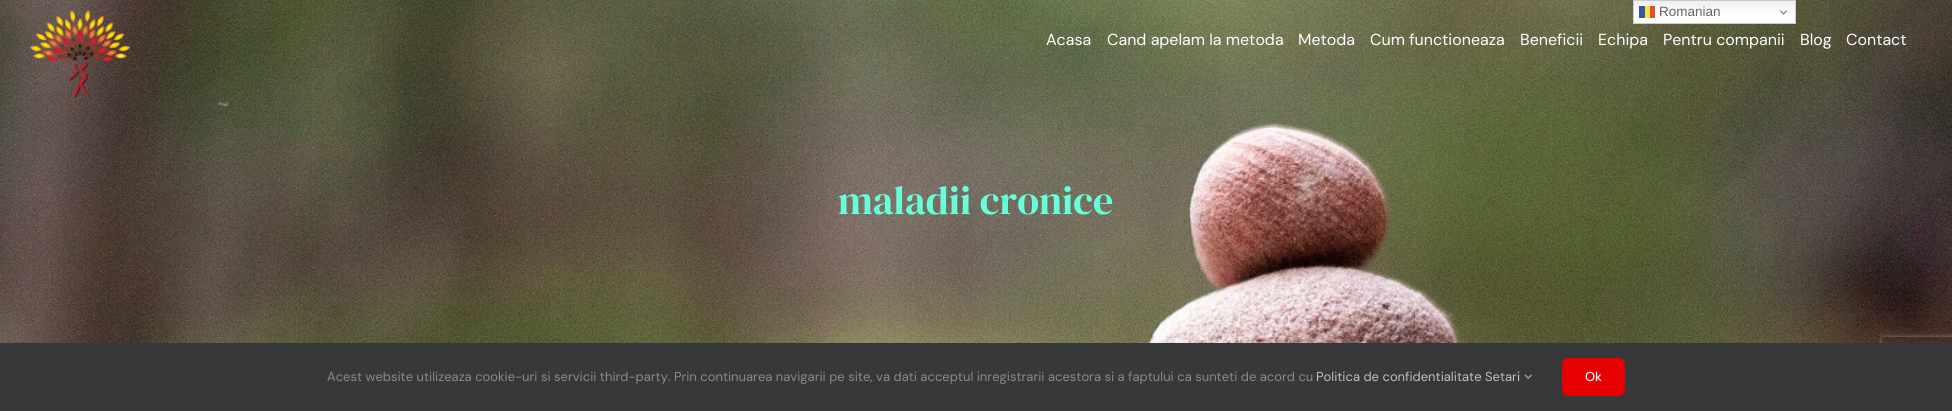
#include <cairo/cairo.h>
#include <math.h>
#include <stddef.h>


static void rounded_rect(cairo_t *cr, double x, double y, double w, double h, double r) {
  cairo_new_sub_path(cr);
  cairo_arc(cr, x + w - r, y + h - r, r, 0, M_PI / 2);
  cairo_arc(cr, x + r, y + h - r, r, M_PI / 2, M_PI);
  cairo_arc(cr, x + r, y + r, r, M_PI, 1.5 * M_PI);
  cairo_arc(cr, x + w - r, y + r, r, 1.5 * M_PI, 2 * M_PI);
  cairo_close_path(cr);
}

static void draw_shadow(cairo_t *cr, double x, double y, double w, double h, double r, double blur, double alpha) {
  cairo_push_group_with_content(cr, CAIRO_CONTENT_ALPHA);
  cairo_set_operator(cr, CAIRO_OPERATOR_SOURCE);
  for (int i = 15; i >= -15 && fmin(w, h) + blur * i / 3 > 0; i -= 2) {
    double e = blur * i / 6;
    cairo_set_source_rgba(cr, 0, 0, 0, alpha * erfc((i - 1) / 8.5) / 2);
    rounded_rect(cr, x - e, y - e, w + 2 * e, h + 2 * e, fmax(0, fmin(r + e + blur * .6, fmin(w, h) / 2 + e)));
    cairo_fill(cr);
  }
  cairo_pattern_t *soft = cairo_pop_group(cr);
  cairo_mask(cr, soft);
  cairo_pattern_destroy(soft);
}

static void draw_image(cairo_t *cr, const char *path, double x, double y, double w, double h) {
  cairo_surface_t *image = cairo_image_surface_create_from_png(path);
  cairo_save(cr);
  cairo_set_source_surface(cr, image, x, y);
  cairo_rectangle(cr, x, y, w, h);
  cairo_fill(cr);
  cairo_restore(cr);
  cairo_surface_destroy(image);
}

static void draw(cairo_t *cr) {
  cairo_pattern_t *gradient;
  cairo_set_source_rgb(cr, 1, 1, 1);
  cairo_paint(cr);
  draw_image(cr, "images/4.png", 0, 0, 1952, 343);
  gradient = cairo_pattern_create_linear(1715, 0, 1715, 24);
  cairo_pattern_add_color_stop_rgba(gradient, 0, 239 / 255.0, 239 / 255.0, 239 / 255.0, 1);
  cairo_pattern_add_color_stop_rgba(gradient, 0.7, 1, 1, 1, 1);
  cairo_set_source(cr, gradient);
  cairo_pattern_destroy(gradient);
  cairo_rectangle(cr, 1634, 1, 161, 22);
  cairo_fill(cr);
  cairo_rectangle(cr, 1633.5, 0.5, 162, 23);
  cairo_set_source_rgb(cr, 204 / 255.0, 204 / 255.0, 204 / 255.0);
  cairo_set_line_width(cr, 1);
  cairo_stroke(cr);
  cairo_set_source_rgba(cr, 0, 49 / 255.0, 156 / 255.0, 0.8);
  cairo_rectangle(cr, 1639, 6, 6, 12);
  cairo_fill(cr);
  cairo_set_source_rgba(cr, 1, 222 / 255.0, 0, 0.8);
  cairo_rectangle(cr, 1645, 6, 5, 12);
  cairo_fill(cr);
  cairo_set_source_rgba(cr, 222 / 255.0, 33 / 255.0, 16 / 255.0, 0.8);
  cairo_rectangle(cr, 1650, 6, 5, 12);
  cairo_fill(cr);
  draw_image(cr, "images/1.png", 1780, 10, 7, 5);
  cairo_save(cr);
  cairo_set_fill_rule(cr, CAIRO_FILL_RULE_EVEN_ODD);
  cairo_new_path(cr);
  cairo_move_to(cr, 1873, 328);
  cairo_line_to(cr, 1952, 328);
  cairo_line_to(cr, 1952, 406);
  cairo_line_to(cr, 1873, 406);
  cairo_close_path(cr);
  cairo_move_to(cr, 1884, 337);
  cairo_line_to(cr, 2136, 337);
  cairo_curve_to(cr, 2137, 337, 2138, 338, 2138, 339);
  cairo_line_to(cr, 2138, 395);
  cairo_curve_to(cr, 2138, 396, 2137, 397, 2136, 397);
  cairo_line_to(cr, 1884, 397);
  cairo_curve_to(cr, 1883, 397, 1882, 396, 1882, 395);
  cairo_line_to(cr, 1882, 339);
  cairo_curve_to(cr, 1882, 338, 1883, 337, 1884, 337);
  cairo_close_path(cr);
  cairo_clip(cr);
  cairo_set_source_rgb(cr, 128 / 255.0, 128 / 255.0, 128 / 255.0);
  draw_shadow(cr, 1882, 337, 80, 60, 2, 2.5, 1);
  cairo_restore(cr);
  cairo_set_source_rgb(cr, 54 / 255.0, 56 / 255.0, 57 / 255.0);
  cairo_rectangle(cr, 0, 343, 1952, 68);
  cairo_fill(cr);
  draw_image(cr, "images/2.png", 1524, 374, 8, 5);
  cairo_set_source_rgb(cr, 230 / 255.0, 0, 0);
  rounded_rect(cr, 1562, 358, 63, 38, 6);
  cairo_fill(cr);
  draw_image(cr, "images/3.png", 30, 10, 100, 88);
  cairo_select_font_face(cr, "Liberation Sans", CAIRO_FONT_SLANT_NORMAL, CAIRO_FONT_WEIGHT_NORMAL);
  cairo_set_font_size(cr, 13.5);
  cairo_set_source_rgb(cr, 102 / 255.0, 102 / 255.0, 102 / 255.0);
  cairo_move_to(cr, 1659, 16);
  cairo_show_text(cr, "Romanian");
  cairo_select_font_face(cr, "DM Sans", CAIRO_FONT_SLANT_NORMAL, CAIRO_FONT_WEIGHT_NORMAL);
  cairo_set_font_size(cr, 13);
  cairo_set_source_rgb(cr, 140 / 255.0, 137 / 255.0, 137 / 255.0);
  cairo_move_to(cr, 327, 381);
  cairo_show_text(cr, "Acest website utilizeaza cookie-uri si servicii third-party. Prin continuarea navigarii pe site, va dati acceptul inregistrarii acestora si a faptului ca sunteti de acord cu");
  cairo_set_source_rgb(cr, 191 / 255.0, 191 / 255.0, 191 / 255.0);
  cairo_move_to(cr, 1316, 381);
  cairo_show_text(cr, "Politica de confidentialitate Setari");
  cairo_select_font_face(cr, "DM Sans Medium", CAIRO_FONT_SLANT_NORMAL, CAIRO_FONT_WEIGHT_NORMAL);
  cairo_set_source_rgb(cr, 1, 1, 1);
  cairo_move_to(cr, 1585, 381);
  cairo_show_text(cr, "Ok");
  cairo_select_font_face(cr, "DM Sans", CAIRO_FONT_SLANT_NORMAL, CAIRO_FONT_WEIGHT_NORMAL);
  cairo_set_font_size(cr, 16);
  cairo_move_to(cr, 1046, 45);
  cairo_show_text(cr, "Acasa");
  cairo_move_to(cr, 1107, 45);
  cairo_show_text(cr, "Cand apelam la metoda");
  cairo_move_to(cr, 1298, 45);
  cairo_show_text(cr, "Metoda");
  cairo_move_to(cr, 1370, 45);
  cairo_show_text(cr, "Cum functioneaza");
  cairo_move_to(cr, 1520, 45);
  cairo_show_text(cr, "Beneficii");
  cairo_move_to(cr, 1598, 45);
  cairo_show_text(cr, "Echipa");
  cairo_move_to(cr, 1663, 45);
  cairo_show_text(cr, "Pentru companii");
  cairo_move_to(cr, 1800, 45);
  cairo_show_text(cr, "Blog");
  cairo_move_to(cr, 1846, 45);
  cairo_show_text(cr, "Contact");
  cairo_select_font_face(cr, "DM Serif Display", CAIRO_FONT_SLANT_NORMAL, CAIRO_FONT_WEIGHT_NORMAL);
  cairo_set_font_size(cr, 40);
  cairo_set_source_rgb(cr, 102 / 255.0, 1, 217 / 255.0);
  cairo_move_to(cr, 838, 214);
  cairo_show_text(cr, "maladii cronice");
}

int main(void) {
  cairo_surface_t *surface = cairo_image_surface_create(CAIRO_FORMAT_RGB24, 1952, 411);
  cairo_t *cr = cairo_create(surface);
  cairo_font_options_t *options = cairo_font_options_create();
  cairo_font_options_set_hint_metrics(options, CAIRO_HINT_METRICS_OFF);
  cairo_font_options_set_hint_style(options, CAIRO_HINT_STYLE_NONE);
  cairo_set_font_options(cr, options);
  cairo_set_miter_limit(cr, 4);
  draw(cr);
  cairo_surface_write_to_png(surface, "out.png");
  cairo_font_options_destroy(options);
  cairo_destroy(cr);
  cairo_surface_destroy(surface);
  return 0;
}
